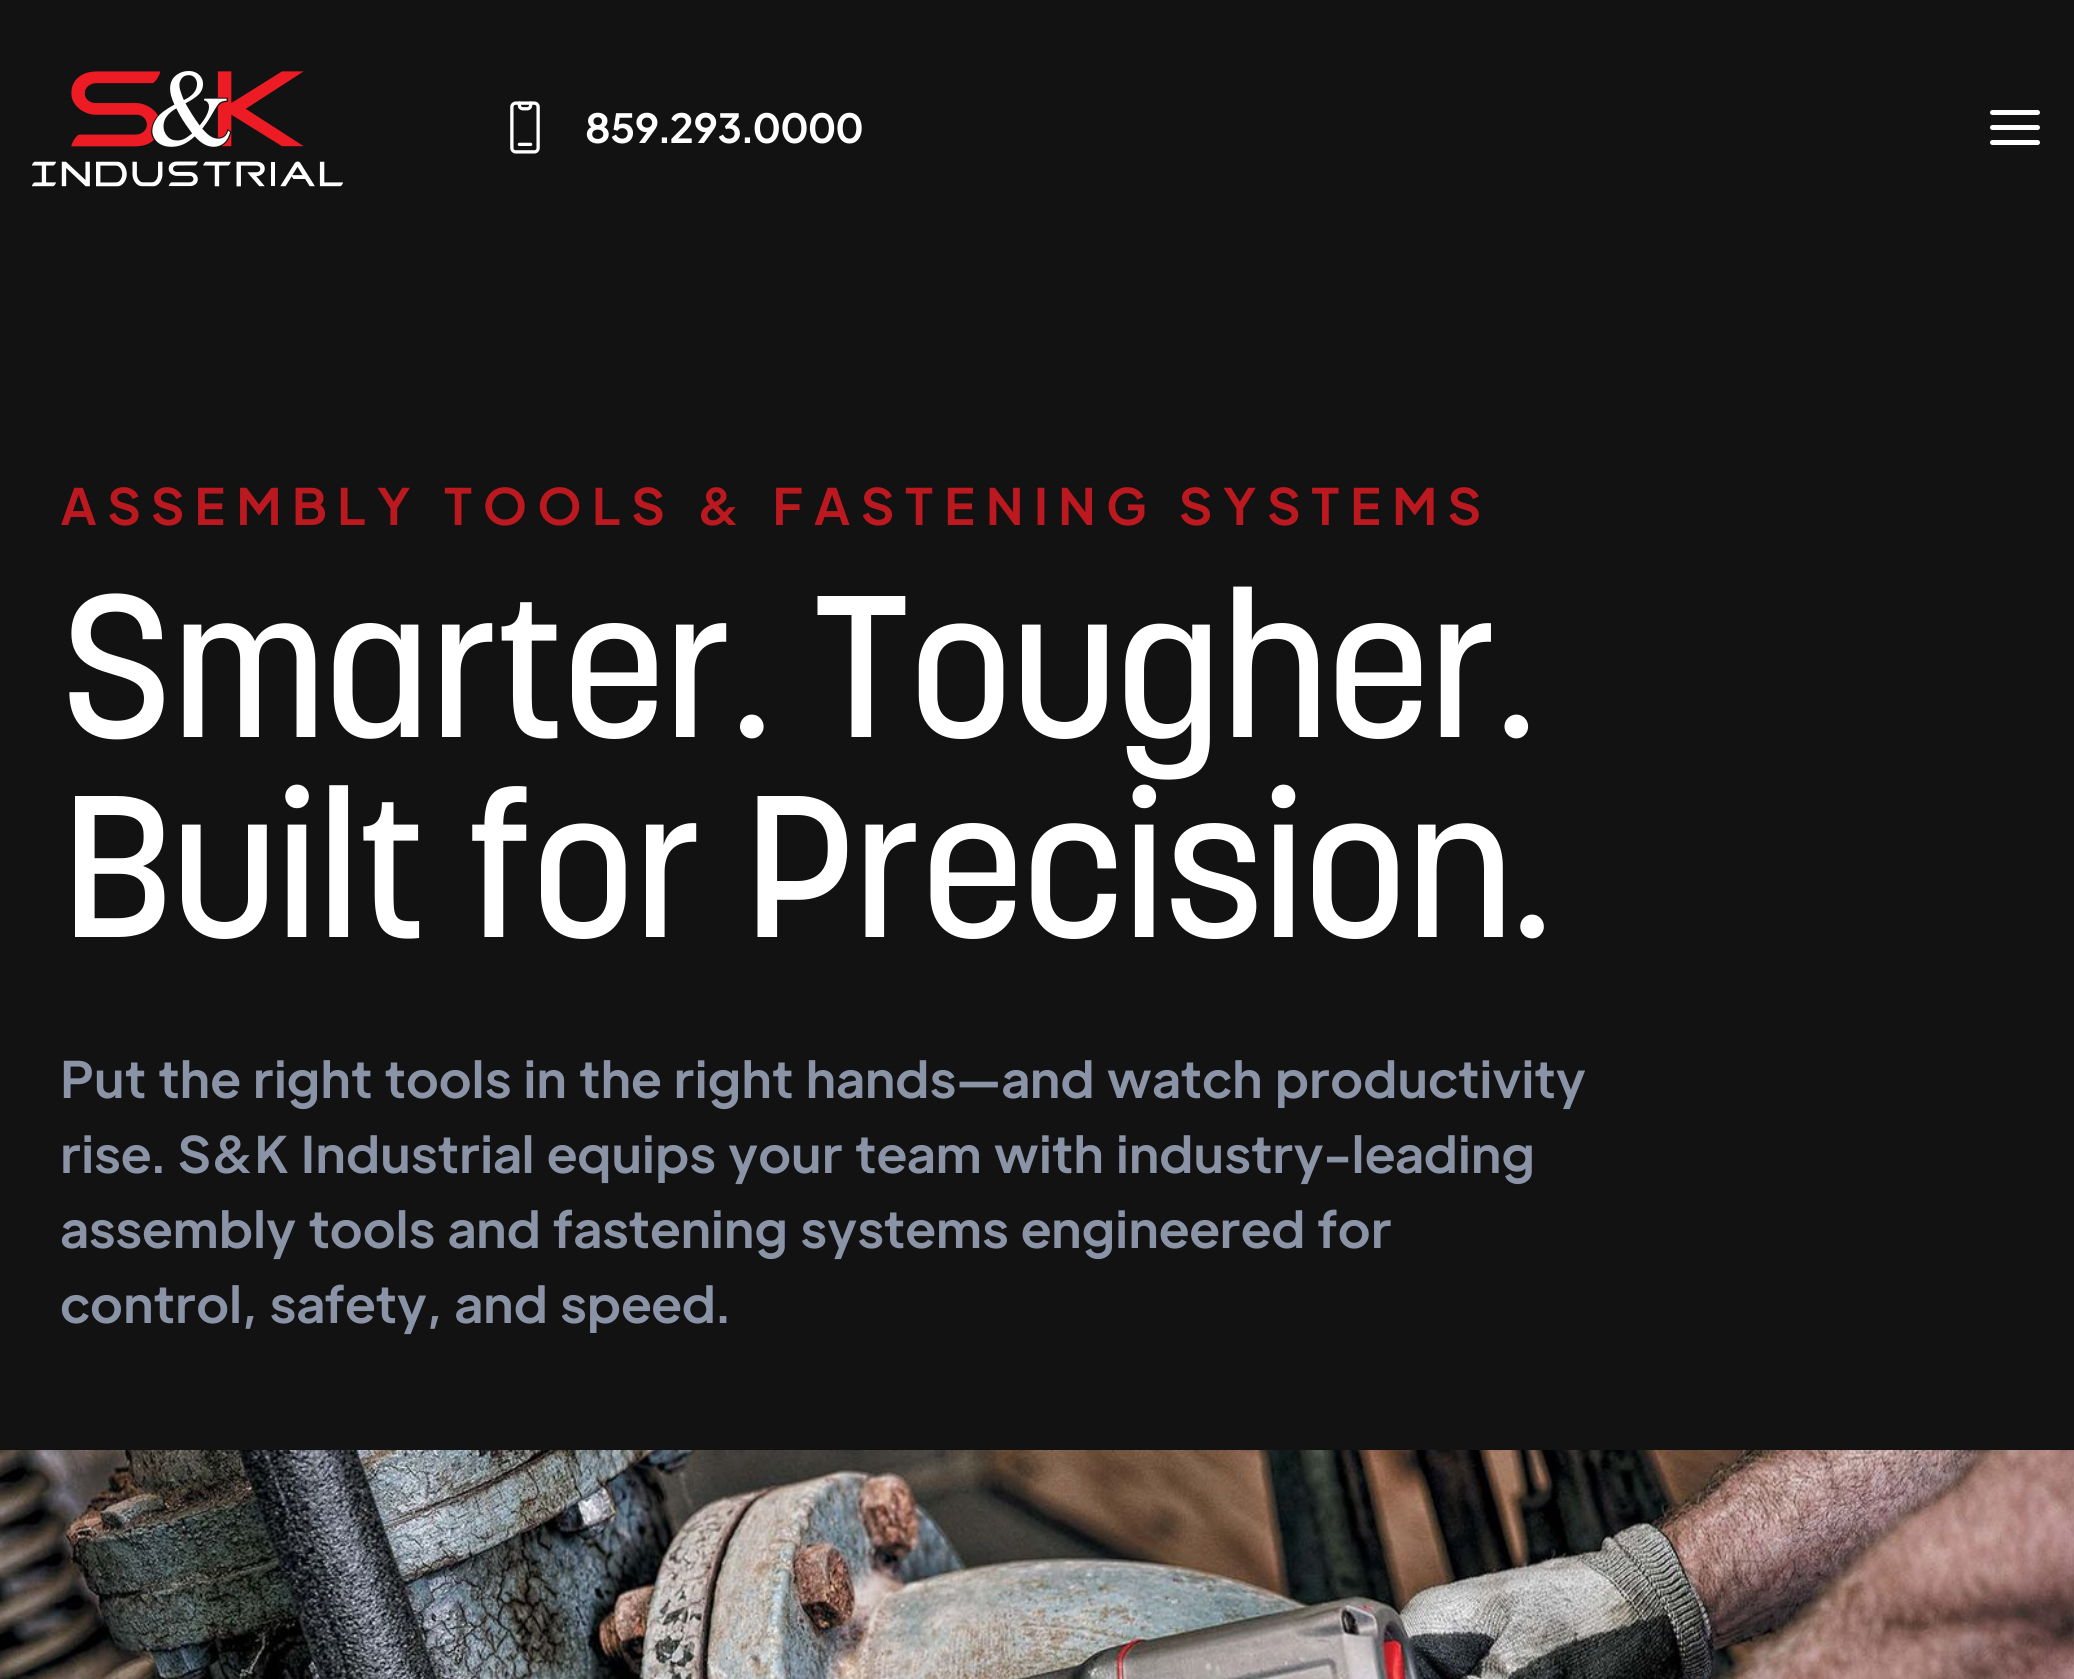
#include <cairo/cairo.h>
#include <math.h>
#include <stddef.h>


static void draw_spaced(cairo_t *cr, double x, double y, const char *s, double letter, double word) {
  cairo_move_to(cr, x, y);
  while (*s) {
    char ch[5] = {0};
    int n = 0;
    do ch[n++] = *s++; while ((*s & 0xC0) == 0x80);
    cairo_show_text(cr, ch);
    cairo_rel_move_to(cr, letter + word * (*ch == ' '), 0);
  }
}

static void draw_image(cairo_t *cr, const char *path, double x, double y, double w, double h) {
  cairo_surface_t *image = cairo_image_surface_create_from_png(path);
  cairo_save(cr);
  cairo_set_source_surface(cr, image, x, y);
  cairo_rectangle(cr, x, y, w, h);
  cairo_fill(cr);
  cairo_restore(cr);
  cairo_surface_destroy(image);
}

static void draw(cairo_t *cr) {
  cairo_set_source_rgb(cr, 1, 1, 1);
  cairo_paint(cr);
  cairo_set_source_rgb(cr, 18 / 255.0, 18 / 255.0, 18 / 255.0);
  cairo_rectangle(cr, 0, 0, 2074, 1450);
  cairo_fill(cr);
  draw_image(cr, "images/1.png", 31, 71, 312, 116);
  draw_image(cr, "images/2.png", 510, 101, 30, 53);
  cairo_new_path(cr);
  cairo_move_to(cr, 1992.5, 127.5);
  cairo_line_to(cr, 2037.5, 127.5);
  cairo_move_to(cr, 1992.5, 112.5);
  cairo_line_to(cr, 2037.5, 112.5);
  cairo_move_to(cr, 1992.5, 142.5);
  cairo_line_to(cr, 2037.5, 142.5);
  cairo_set_source_rgb(cr, 1, 1, 1);
  cairo_set_line_width(cr, 5);
  cairo_set_line_cap(cr, CAIRO_LINE_CAP_ROUND);
  cairo_set_line_join(cr, CAIRO_LINE_JOIN_ROUND);
  cairo_stroke(cr);
  draw_image(cr, "images/3.png", 0, 1450, 2074, 229);
  cairo_select_font_face(cr, "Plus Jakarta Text", CAIRO_FONT_SLANT_NORMAL, CAIRO_FONT_WEIGHT_BOLD);
  cairo_set_font_size(cr, 40);
  cairo_move_to(cr, 585, 143);
  cairo_show_text(cr, "859.293.0000");
  cairo_set_font_size(cr, 50);
  cairo_set_source_rgb(cr, 187 / 255.0, 25 / 255.0, 31 / 255.0);
  draw_spaced(cr, 60, 525, "ASSEMBLY TOOLS & FASTENING SYSTEMS", 10, 0);
  cairo_select_font_face(cr, "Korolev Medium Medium", CAIRO_FONT_SLANT_NORMAL, CAIRO_FONT_WEIGHT_NORMAL);
  cairo_set_font_size(cr, 200);
  cairo_set_source_rgb(cr, 1, 1, 1);
  draw_spaced(cr, 60, 737, "Smarter. Tougher.", -2.5, 0);
  draw_spaced(cr, 60, 937, "Built for Precision.", -2.5, 0);
  cairo_select_font_face(cr, "Plus Jakarta Text", CAIRO_FONT_SLANT_NORMAL, CAIRO_FONT_WEIGHT_BOLD);
  cairo_set_font_size(cr, 50);
  cairo_set_source_rgb(cr, 138 / 255.0, 148 / 255.0, 166 / 255.0);
  cairo_move_to(cr, 60, 1098);
  cairo_show_text(cr, "Put the right tools in the right hands—and watch productivity");
  cairo_move_to(cr, 60, 1173);
  cairo_show_text(cr, "rise. S&K Industrial equips your team with industry-leading");
  cairo_move_to(cr, 60, 1248);
  cairo_show_text(cr, "assembly tools and fastening systems engineered for");
  cairo_move_to(cr, 60, 1323);
  cairo_show_text(cr, "control, safety, and speed.");
}

int main(void) {
  cairo_surface_t *surface = cairo_image_surface_create(CAIRO_FORMAT_RGB24, 2074, 1679);
  cairo_t *cr = cairo_create(surface);
  cairo_font_options_t *options = cairo_font_options_create();
  cairo_font_options_set_hint_metrics(options, CAIRO_HINT_METRICS_OFF);
  cairo_font_options_set_hint_style(options, CAIRO_HINT_STYLE_NONE);
  cairo_set_font_options(cr, options);
  cairo_set_miter_limit(cr, 4);
  draw(cr);
  cairo_surface_write_to_png(surface, "out.png");
  cairo_font_options_destroy(options);
  cairo_destroy(cr);
  cairo_surface_destroy(surface);
  return 0;
}
